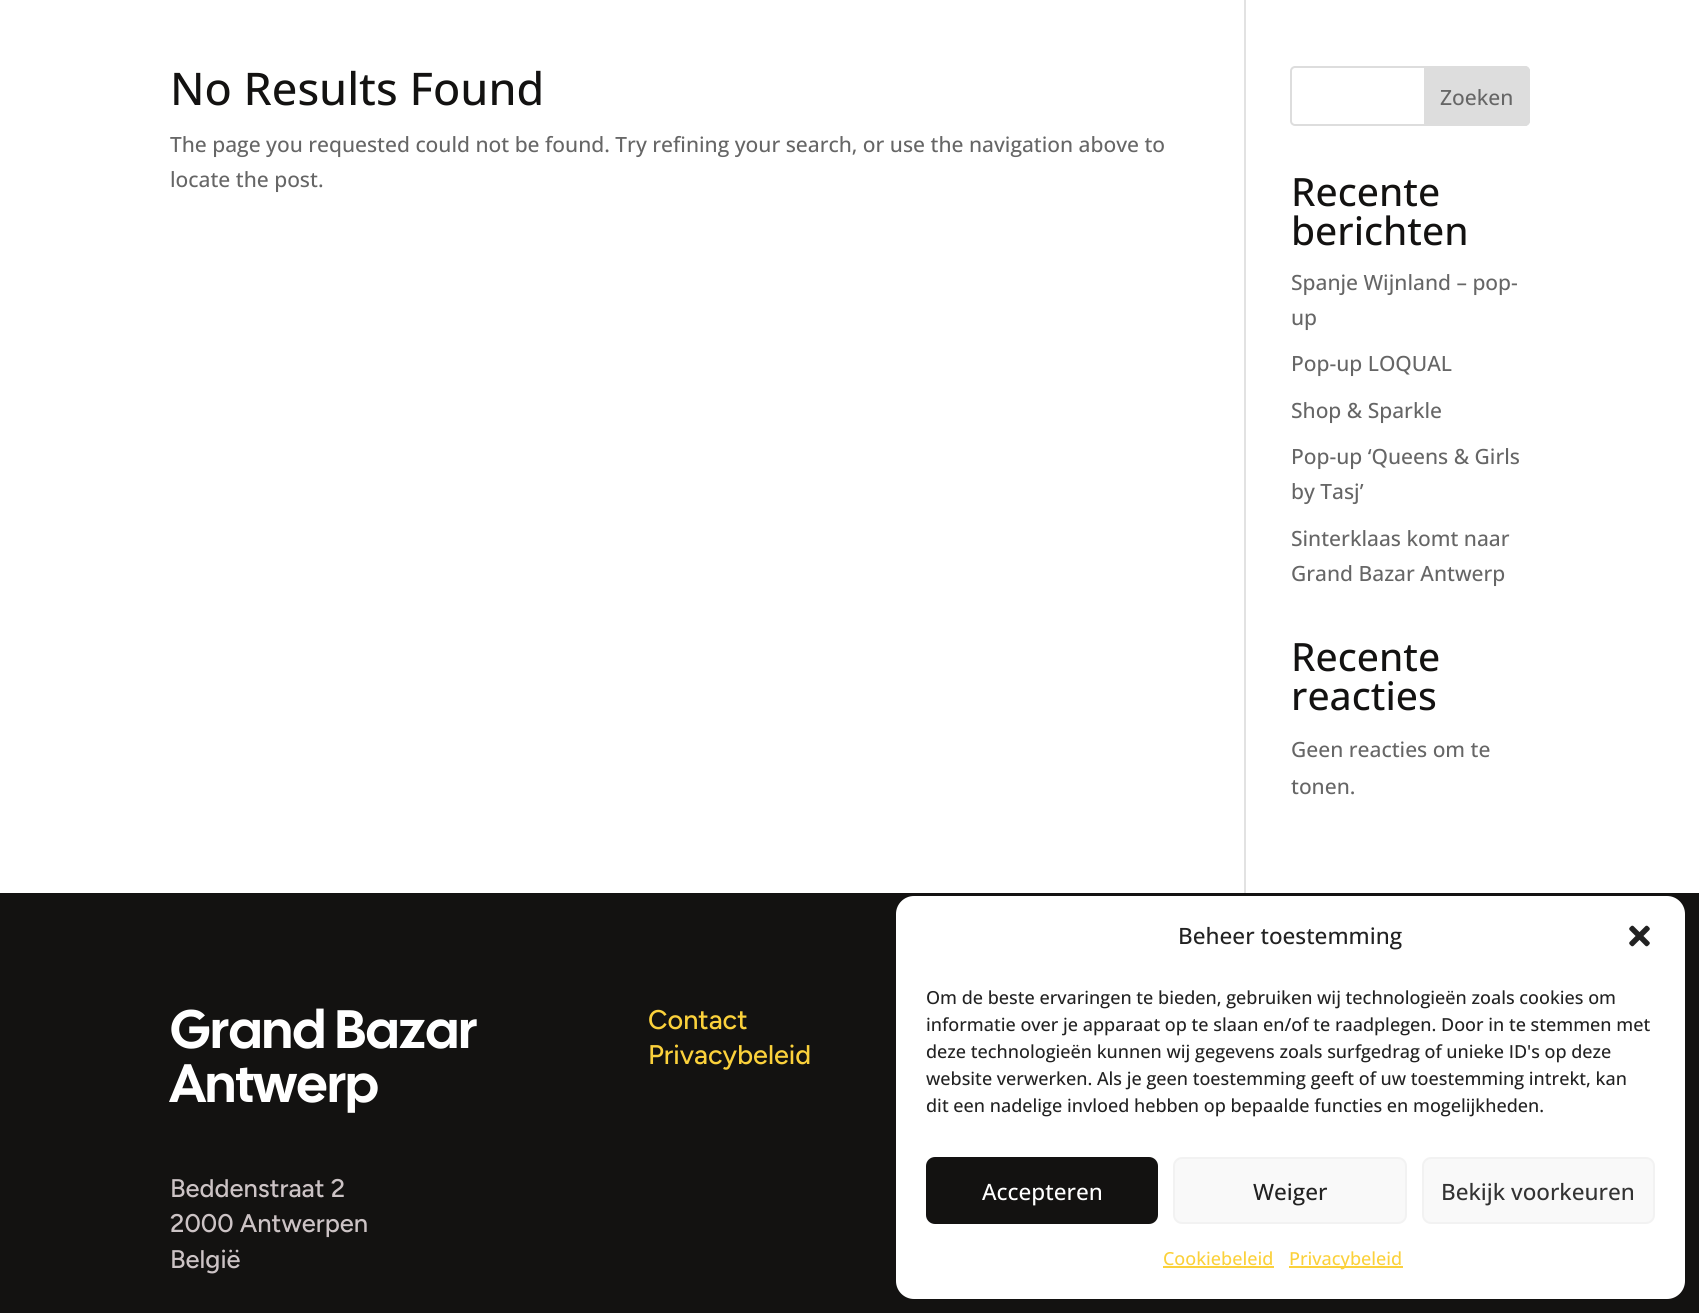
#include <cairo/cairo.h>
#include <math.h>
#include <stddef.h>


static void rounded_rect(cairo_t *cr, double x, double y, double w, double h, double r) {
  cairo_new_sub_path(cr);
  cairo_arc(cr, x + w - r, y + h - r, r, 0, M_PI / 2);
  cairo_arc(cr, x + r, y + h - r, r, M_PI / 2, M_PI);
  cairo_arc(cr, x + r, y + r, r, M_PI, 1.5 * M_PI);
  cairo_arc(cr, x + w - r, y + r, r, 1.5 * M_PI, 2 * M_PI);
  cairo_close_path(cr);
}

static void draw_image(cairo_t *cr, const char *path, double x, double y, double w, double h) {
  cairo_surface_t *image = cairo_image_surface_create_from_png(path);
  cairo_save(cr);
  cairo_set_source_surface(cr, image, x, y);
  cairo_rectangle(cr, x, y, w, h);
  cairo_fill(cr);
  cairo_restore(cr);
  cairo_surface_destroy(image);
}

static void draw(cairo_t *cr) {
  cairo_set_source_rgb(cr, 1, 1, 1);
  cairo_paint(cr);
  cairo_set_source_rgb(cr, 226 / 255.0, 226 / 255.0, 226 / 255.0);
  cairo_rectangle(cr, 1244, 0, 2, 893);
  cairo_fill(cr);
  rounded_rect(cr, 1291, 67, 238, 58, 4);
  cairo_set_source_rgb(cr, 221 / 255.0, 221 / 255.0, 221 / 255.0);
  cairo_stroke(cr);
  cairo_new_path(cr);
  cairo_move_to(cr, 1425, 67);
  cairo_line_to(cr, 1525, 67);
  cairo_curve_to(cr, 1527, 67, 1529, 69, 1529, 71);
  cairo_line_to(cr, 1529, 121);
  cairo_curve_to(cr, 1529, 123, 1527, 125, 1525, 125);
  cairo_line_to(cr, 1425, 125);
  cairo_close_path(cr);
  cairo_fill_preserve(cr);
  cairo_stroke(cr);
  cairo_set_source_rgb(cr, 19 / 255.0, 18 / 255.0, 17 / 255.0);
  cairo_rectangle(cr, 0, 893, 1699, 420);
  cairo_fill(cr);
  cairo_set_source_rgb(cr, 1, 1, 1);
  rounded_rect(cr, 896, 896, 789, 403, 18);
  cairo_fill(cr);
  draw_image(cr, "images/1.png", 1629, 925, 21, 22);
  cairo_set_source_rgb(cr, 19 / 255.0, 18 / 255.0, 17 / 255.0);
  rounded_rect(cr, 927, 1158, 230, 65, 8);
  cairo_fill_preserve(cr);
  cairo_stroke(cr);
  cairo_set_source_rgb(cr, 249 / 255.0, 249 / 255.0, 249 / 255.0);
  rounded_rect(cr, 1174, 1158, 232, 65, 8);
  cairo_fill_preserve(cr);
  cairo_set_source_rgb(cr, 242 / 255.0, 242 / 255.0, 242 / 255.0);
  cairo_stroke(cr);
  cairo_set_source_rgb(cr, 249 / 255.0, 249 / 255.0, 249 / 255.0);
  rounded_rect(cr, 1423, 1158, 231, 65, 8);
  cairo_fill_preserve(cr);
  cairo_set_source_rgb(cr, 242 / 255.0, 242 / 255.0, 242 / 255.0);
  cairo_stroke(cr);
  cairo_set_source_rgb(cr, 251 / 255.0, 209 / 255.0, 59 / 255.0);
  cairo_rectangle(cr, 1163, 1266, 111, 2);
  cairo_fill(cr);
  cairo_rectangle(cr, 1289, 1266, 114, 2);
  cairo_fill(cr);
  cairo_select_font_face(cr, "Open Sans Medium", CAIRO_FONT_SLANT_NORMAL, CAIRO_FONT_WEIGHT_NORMAL);
  cairo_set_font_size(cr, 45);
  cairo_set_source_rgb(cr, 19 / 255.0, 18 / 255.0, 17 / 255.0);
  cairo_move_to(cr, 170, 105);
  cairo_show_text(cr, "No Results Found");
  cairo_set_font_size(cr, 21);
  cairo_set_source_rgb(cr, 102 / 255.0, 102 / 255.0, 102 / 255.0);
  cairo_move_to(cr, 170, 152);
  cairo_show_text(cr, "The page you requested could not be found. Try refining your search, or use the navigation above to");
  cairo_move_to(cr, 170, 187);
  cairo_show_text(cr, "locate the post.");
  cairo_move_to(cr, 1440, 105);
  cairo_show_text(cr, "Zoeken");
  cairo_set_font_size(cr, 39);
  cairo_set_source_rgb(cr, 19 / 255.0, 18 / 255.0, 17 / 255.0);
  cairo_move_to(cr, 1291, 206);
  cairo_show_text(cr, "Recente");
  cairo_move_to(cr, 1291, 245);
  cairo_show_text(cr, "berichten");
  cairo_set_font_size(cr, 21);
  cairo_set_source_rgb(cr, 102 / 255.0, 102 / 255.0, 102 / 255.0);
  cairo_move_to(cr, 1291, 290);
  cairo_show_text(cr, "Spanje Wijnland – pop-");
  cairo_move_to(cr, 1291, 325);
  cairo_show_text(cr, "up");
  cairo_move_to(cr, 1291, 371);
  cairo_show_text(cr, "Pop-up LOQUAL");
  cairo_move_to(cr, 1291, 418);
  cairo_show_text(cr, "Shop & Sparkle");
  cairo_move_to(cr, 1291, 464);
  cairo_show_text(cr, "Pop-up ‘Queens & Girls");
  cairo_move_to(cr, 1291, 499);
  cairo_show_text(cr, "by Tasj’");
  cairo_move_to(cr, 1291, 546);
  cairo_show_text(cr, "Sinterklaas komt naar");
  cairo_move_to(cr, 1291, 581);
  cairo_show_text(cr, "Grand Bazar Antwerp");
  cairo_set_font_size(cr, 39);
  cairo_set_source_rgb(cr, 19 / 255.0, 18 / 255.0, 17 / 255.0);
  cairo_move_to(cr, 1291, 671);
  cairo_show_text(cr, "Recente");
  cairo_move_to(cr, 1291, 710);
  cairo_show_text(cr, "reacties");
  cairo_set_font_size(cr, 21);
  cairo_set_source_rgb(cr, 102 / 255.0, 102 / 255.0, 102 / 255.0);
  cairo_move_to(cr, 1291, 757);
  cairo_show_text(cr, "Geen reacties om te");
  cairo_move_to(cr, 1291, 794);
  cairo_show_text(cr, "tonen.");
  cairo_select_font_face(cr, "Cal Sans", CAIRO_FONT_SLANT_NORMAL, CAIRO_FONT_WEIGHT_NORMAL);
  cairo_set_font_size(cr, 54);
  cairo_set_source_rgb(cr, 1, 1, 1);
  cairo_move_to(cr, 170, 1048);
  cairo_show_text(cr, "Grand Bazar");
  cairo_move_to(cr, 170, 1102);
  cairo_show_text(cr, "Antwerp");
  cairo_select_font_face(cr, "Figtree Medium", CAIRO_FONT_SLANT_NORMAL, CAIRO_FONT_WEIGHT_NORMAL);
  cairo_set_font_size(cr, 25.5);
  cairo_set_source_rgb(cr, 204 / 255.0, 195 / 255.0, 197 / 255.0);
  cairo_move_to(cr, 170, 1197);
  cairo_show_text(cr, "Beddenstraat 2");
  cairo_move_to(cr, 170, 1232);
  cairo_show_text(cr, "2000 Antwerpen");
  cairo_move_to(cr, 170, 1268);
  cairo_show_text(cr, "België");
  cairo_set_font_size(cr, 27);
  cairo_set_source_rgb(cr, 251 / 255.0, 209 / 255.0, 59 / 255.0);
  cairo_move_to(cr, 648, 1029);
  cairo_show_text(cr, "Contact");
  cairo_move_to(cr, 648, 1064);
  cairo_show_text(cr, "Privacybeleid");
  cairo_select_font_face(cr, "Open Sans Medium", CAIRO_FONT_SLANT_NORMAL, CAIRO_FONT_WEIGHT_NORMAL);
  cairo_set_font_size(cr, 22.5);
  cairo_set_source_rgb(cr, 34 / 255.0, 34 / 255.0, 34 / 255.0);
  cairo_move_to(cr, 1178, 944);
  cairo_show_text(cr, "Beheer toestemming");
  cairo_set_font_size(cr, 18);
  cairo_move_to(cr, 926, 1004);
  cairo_show_text(cr, "Om de beste ervaringen te bieden, gebruiken wij technologieën zoals cookies om");
  cairo_move_to(cr, 926, 1031);
  cairo_show_text(cr, "informatie over je apparaat op te slaan en/of te raadplegen. Door in te stemmen met");
  cairo_move_to(cr, 926, 1058);
  cairo_show_text(cr, "deze technologieën kunnen wij gegevens zoals surfgedrag of unieke ID's op deze");
  cairo_move_to(cr, 926, 1085);
  cairo_show_text(cr, "website verwerken. Als je geen toestemming geeft of uw toestemming intrekt, kan");
  cairo_move_to(cr, 926, 1112);
  cairo_show_text(cr, "dit een nadelige invloed hebben op bepaalde functies en mogelijkheden.");
  cairo_set_font_size(cr, 22.5);
  cairo_set_source_rgb(cr, 1, 1, 1);
  cairo_move_to(cr, 982, 1200);
  cairo_show_text(cr, "Accepteren");
  cairo_set_source_rgb(cr, 34 / 255.0, 34 / 255.0, 34 / 255.0);
  cairo_move_to(cr, 1253, 1200);
  cairo_show_text(cr, "Weiger");
  cairo_set_source_rgb(cr, 51 / 255.0, 51 / 255.0, 51 / 255.0);
  cairo_move_to(cr, 1441, 1200);
  cairo_show_text(cr, "Bekijk voorkeuren");
  cairo_set_font_size(cr, 18);
  cairo_set_source_rgb(cr, 251 / 255.0, 209 / 255.0, 59 / 255.0);
  cairo_move_to(cr, 1163, 1265);
  cairo_show_text(cr, "Cookiebeleid");
  cairo_move_to(cr, 1289, 1265);
  cairo_show_text(cr, "Privacybeleid");
}

int main(void) {
  cairo_surface_t *surface = cairo_image_surface_create(CAIRO_FORMAT_RGB24, 1699, 1313);
  cairo_t *cr = cairo_create(surface);
  cairo_font_options_t *options = cairo_font_options_create();
  cairo_font_options_set_hint_metrics(options, CAIRO_HINT_METRICS_OFF);
  cairo_font_options_set_hint_style(options, CAIRO_HINT_STYLE_NONE);
  cairo_set_font_options(cr, options);
  cairo_set_miter_limit(cr, 4);
  draw(cr);
  cairo_surface_write_to_png(surface, "out.png");
  cairo_font_options_destroy(options);
  cairo_destroy(cr);
  cairo_surface_destroy(surface);
  return 0;
}
